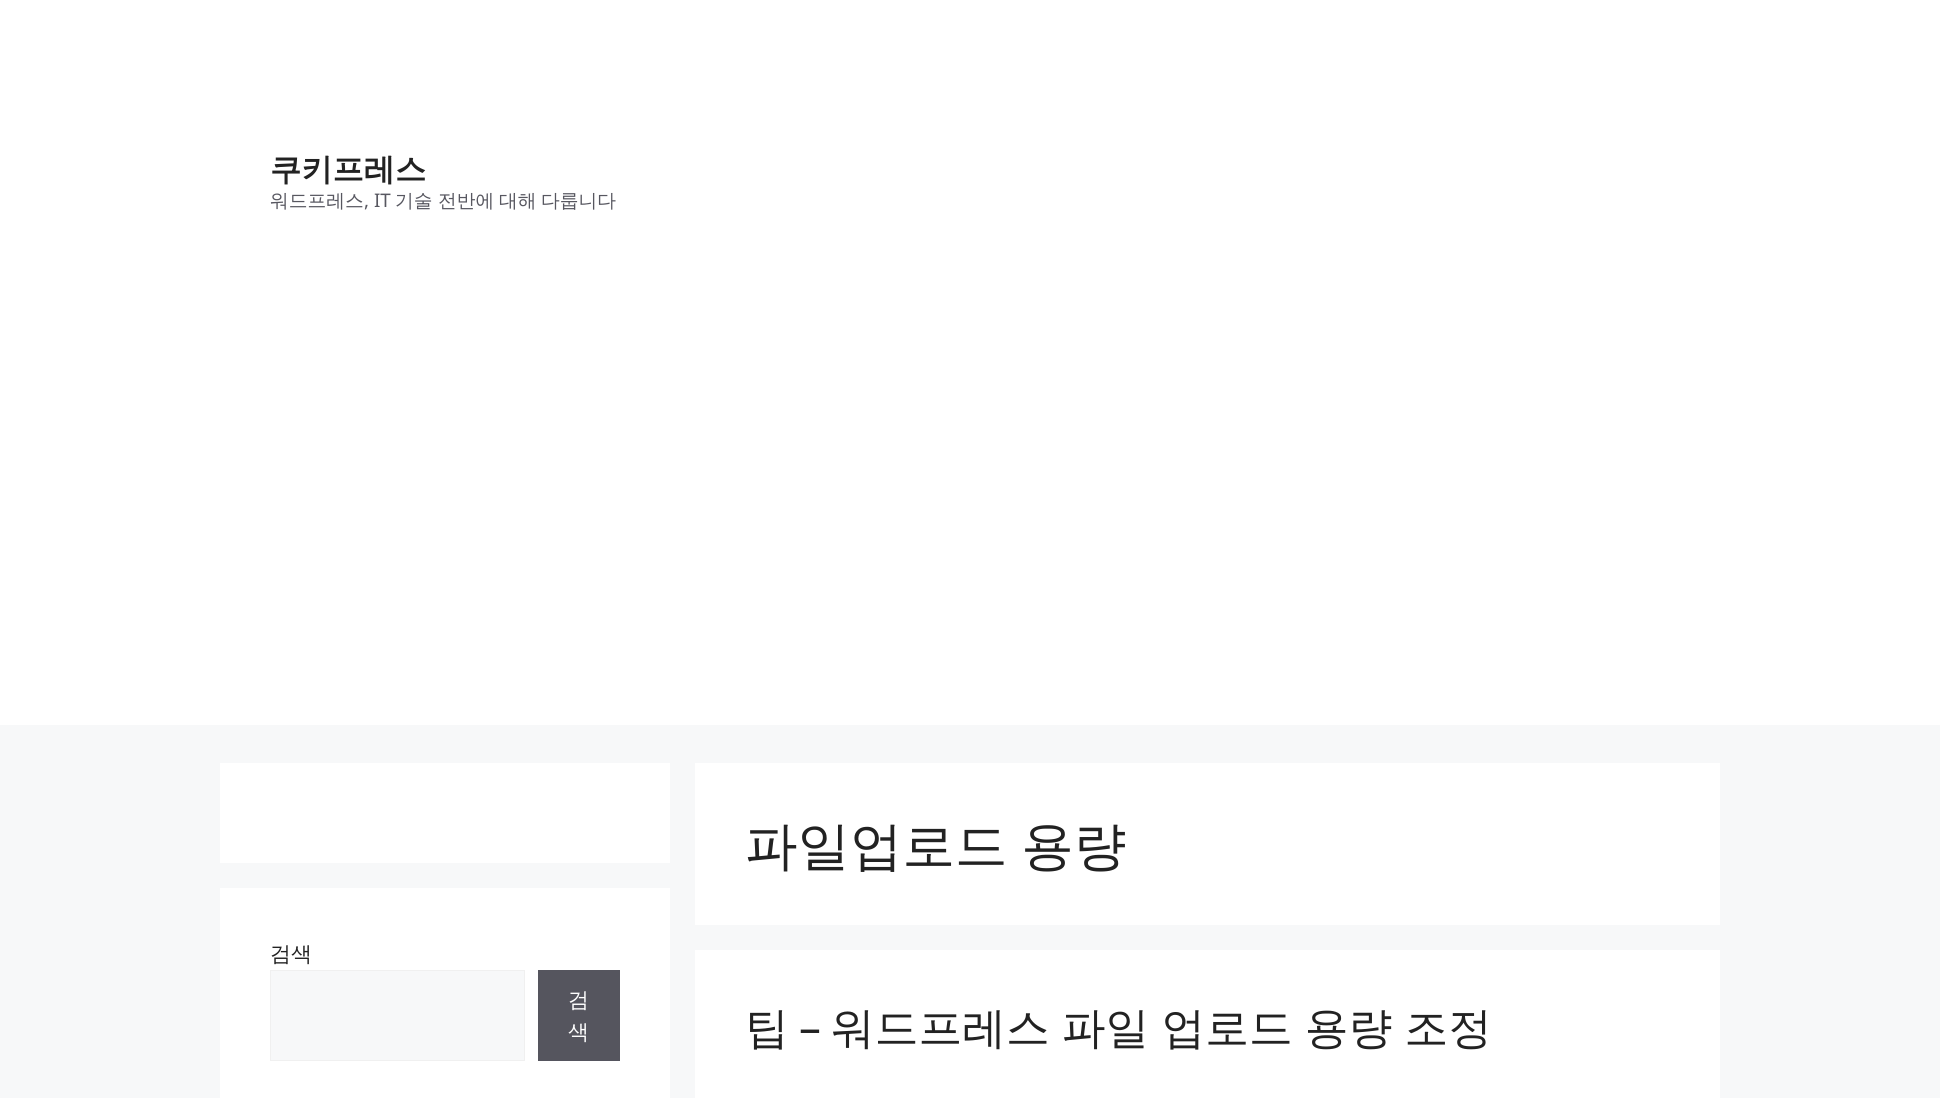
#include <cairo/cairo.h>
#include <math.h>
#include <stddef.h>


static void draw_spaced(cairo_t *cr, double x, double y, const char *s, double letter, double word) {
  cairo_move_to(cr, x, y);
  while (*s) {
    char ch[5] = {0};
    int n = 0;
    do ch[n++] = *s++; while ((*s & 0xC0) == 0x80);
    cairo_show_text(cr, ch);
    cairo_rel_move_to(cr, letter + word * (*ch == ' '), 0);
  }
}

static void draw(cairo_t *cr) {
  cairo_set_source_rgb(cr, 247 / 255.0, 248 / 255.0, 249 / 255.0);
  cairo_paint(cr);
  cairo_set_source_rgb(cr, 1, 1, 1);
  cairo_rectangle(cr, 0, 0, 1940, 725);
  cairo_fill(cr);
  cairo_rectangle(cr, 220, 763, 450, 100);
  cairo_fill(cr);
  cairo_rectangle(cr, 220, 888, 450, 210);
  cairo_fill(cr);
  cairo_set_source_rgb(cr, 247 / 255.0, 248 / 255.0, 249 / 255.0);
  cairo_rectangle(cr, 270.5, 970.5, 254, 90);
  cairo_fill_preserve(cr);
  cairo_set_source_rgb(cr, 240 / 255.0, 240 / 255.0, 240 / 255.0);
  cairo_set_line_width(cr, 1);
  cairo_stroke(cr);
  cairo_set_source_rgb(cr, 85 / 255.0, 85 / 255.0, 94 / 255.0);
  cairo_rectangle(cr, 538, 970, 82, 91);
  cairo_fill(cr);
  cairo_set_source_rgb(cr, 1, 1, 1);
  cairo_rectangle(cr, 695, 763, 1025, 162);
  cairo_fill(cr);
  cairo_rectangle(cr, 695, 950, 1025, 148);
  cairo_fill(cr);
  cairo_select_font_face(cr, "WenQuanYi Zen Hei", CAIRO_FONT_SLANT_NORMAL, CAIRO_FONT_WEIGHT_BOLD);
  cairo_set_font_size(cr, 31.25);
  cairo_set_source_rgb(cr, 34 / 255.0, 34 / 255.0, 34 / 255.0);
  cairo_move_to(cr, 270, 180);
  cairo_show_text(cr, "쿠키프레스");
  cairo_select_font_face(cr, "WenQuanYi Zen Hei Medium", CAIRO_FONT_SLANT_NORMAL, CAIRO_FONT_WEIGHT_NORMAL);
  cairo_set_font_size(cr, 18.75);
  cairo_set_source_rgb(cr, 87 / 255.0, 87 / 255.0, 96 / 255.0);
  cairo_move_to(cr, 270, 207);
  cairo_show_text(cr, "워드프레스");
  cairo_select_font_face(cr, "Noto Sans", CAIRO_FONT_SLANT_NORMAL, CAIRO_FONT_WEIGHT_NORMAL);
  cairo_move_to(cr, 364, 207);
  cairo_show_text(cr, ", IT");
  cairo_select_font_face(cr, "WenQuanYi Zen Hei Medium", CAIRO_FONT_SLANT_NORMAL, CAIRO_FONT_WEIGHT_NORMAL);
  cairo_move_to(cr, 395, 207);
  cairo_show_text(cr, "기술");
  cairo_move_to(cr, 438, 207);
  cairo_show_text(cr, "전반에");
  cairo_move_to(cr, 499, 207);
  cairo_show_text(cr, "대해");
  cairo_move_to(cr, 541, 207);
  cairo_show_text(cr, "다룹니다");
  cairo_set_font_size(cr, 21);
  cairo_set_source_rgb(cr, 34 / 255.0, 34 / 255.0, 34 / 255.0);
  cairo_move_to(cr, 270, 961);
  cairo_show_text(cr, "검색");
  cairo_set_source_rgb(cr, 1, 1, 1);
  cairo_move_to(cr, 568, 1007);
  cairo_show_text(cr, "검");
  cairo_move_to(cr, 568, 1039);
  cairo_show_text(cr, "색");
  cairo_set_font_size(cr, 52.5);
  cairo_set_source_rgb(cr, 34 / 255.0, 34 / 255.0, 34 / 255.0);
  draw_spaced(cr, 745, 864, "파일업로드 용량", 0, -2);
  cairo_set_font_size(cr, 43.75);
  cairo_move_to(cr, 745, 1043);
  cairo_show_text(cr, "팁");
  cairo_select_font_face(cr, "Noto Sans", CAIRO_FONT_SLANT_NORMAL, CAIRO_FONT_WEIGHT_NORMAL);
  cairo_move_to(cr, 799, 1043);
  cairo_show_text(cr, "–");
  cairo_select_font_face(cr, "WenQuanYi Zen Hei Medium", CAIRO_FONT_SLANT_NORMAL, CAIRO_FONT_WEIGHT_NORMAL);
  draw_spaced(cr, 831, 1043, "워드프레스 파일 업로드 용량 조정", 0, -1);
}

int main(void) {
  cairo_surface_t *surface = cairo_image_surface_create(CAIRO_FORMAT_RGB24, 1940, 1098);
  cairo_t *cr = cairo_create(surface);
  cairo_font_options_t *options = cairo_font_options_create();
  cairo_font_options_set_hint_metrics(options, CAIRO_HINT_METRICS_OFF);
  cairo_font_options_set_hint_style(options, CAIRO_HINT_STYLE_NONE);
  cairo_set_font_options(cr, options);
  cairo_set_miter_limit(cr, 4);
  draw(cr);
  cairo_surface_write_to_png(surface, "out.png");
  cairo_font_options_destroy(options);
  cairo_destroy(cr);
  cairo_surface_destroy(surface);
  return 0;
}
